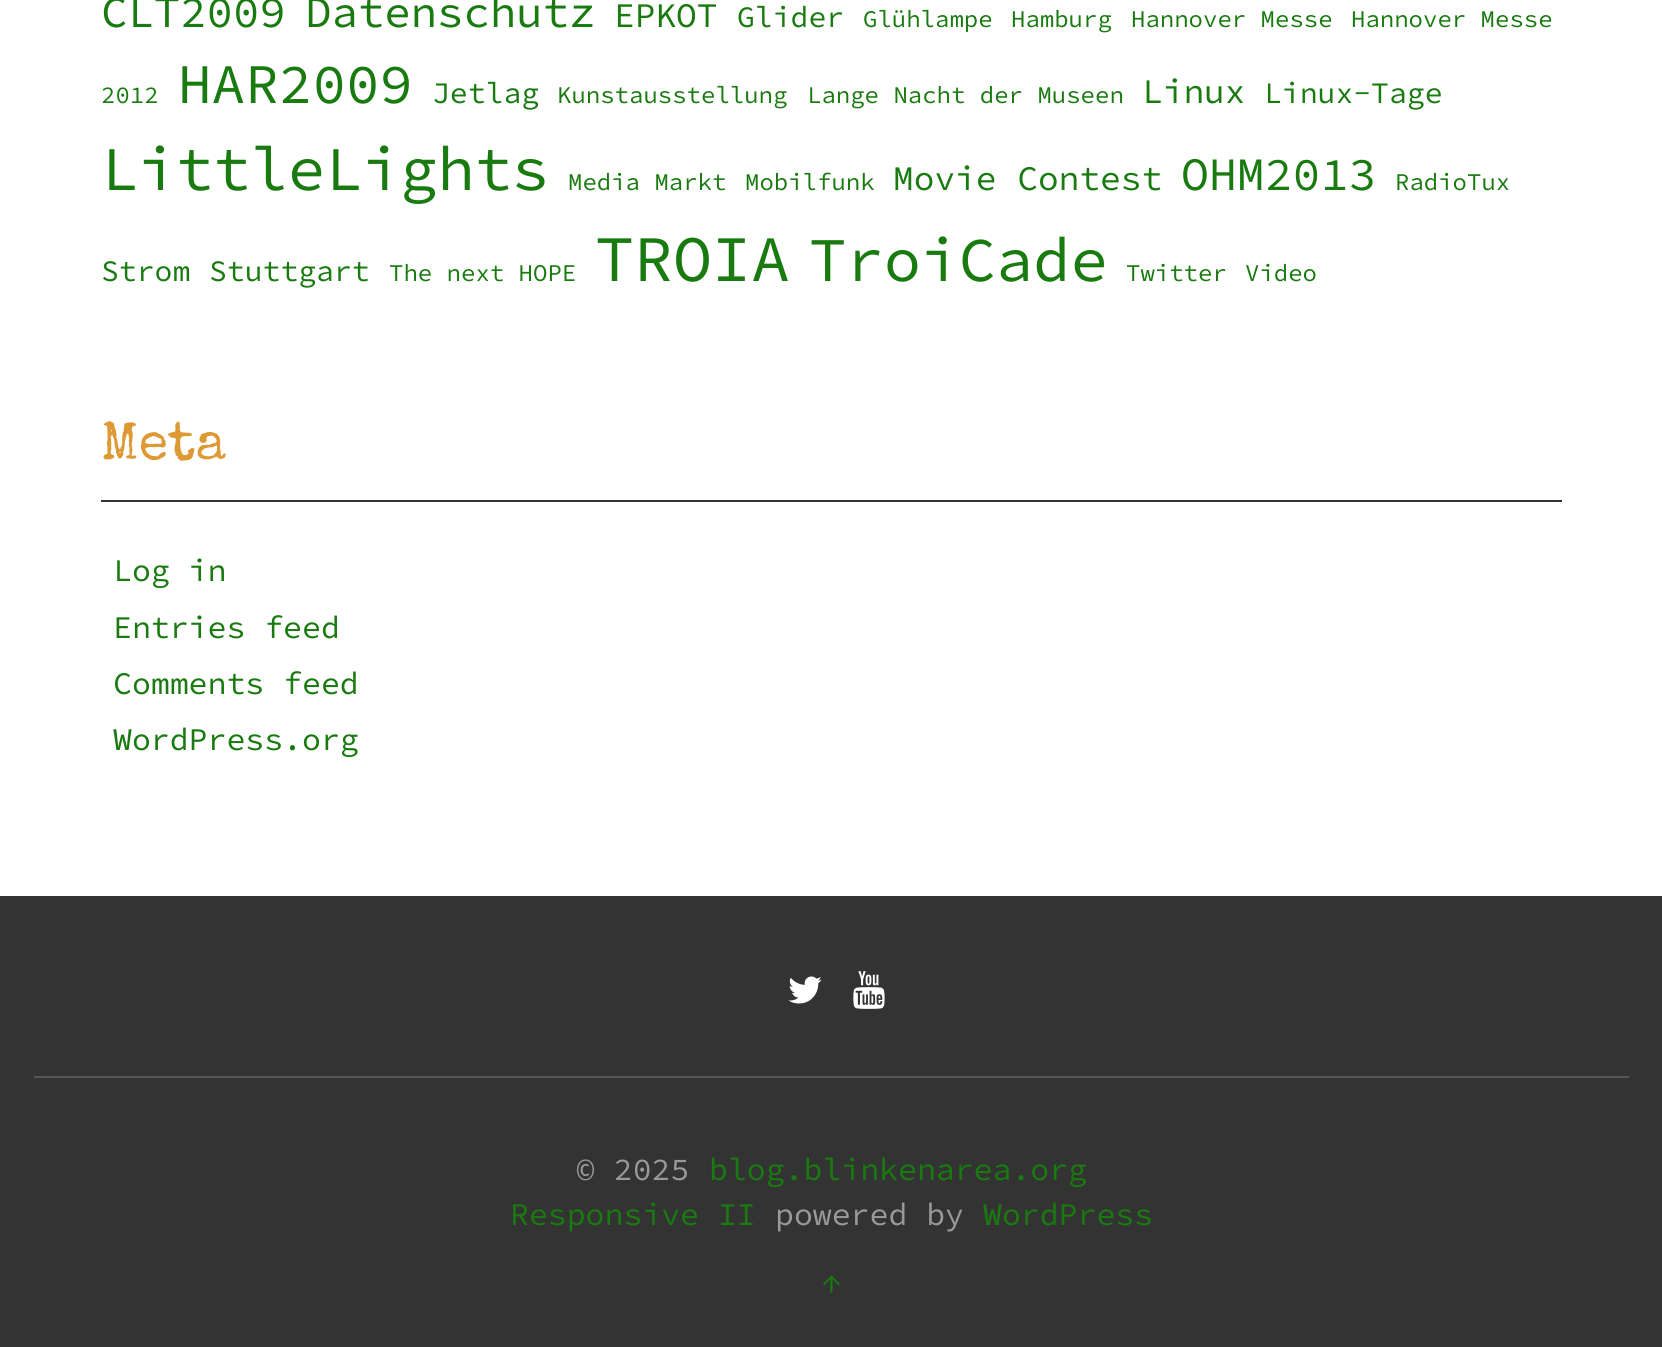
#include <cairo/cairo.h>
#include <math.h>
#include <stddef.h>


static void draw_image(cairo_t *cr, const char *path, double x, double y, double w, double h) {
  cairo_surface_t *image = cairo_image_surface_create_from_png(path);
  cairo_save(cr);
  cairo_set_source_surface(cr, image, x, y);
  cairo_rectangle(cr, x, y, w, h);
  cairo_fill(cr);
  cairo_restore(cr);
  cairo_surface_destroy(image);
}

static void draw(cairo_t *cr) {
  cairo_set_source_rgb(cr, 1, 1, 1);
  cairo_paint(cr);
  cairo_set_source_rgb(cr, 51 / 255.0, 51 / 255.0, 51 / 255.0);
  cairo_rectangle(cr, 101, 500, 1461, 2);
  cairo_fill(cr);
  cairo_rectangle(cr, 0, 896, 1662, 451);
  cairo_fill(cr);
  cairo_set_source_rgb(cr, 85 / 255.0, 85 / 255.0, 85 / 255.0);
  cairo_rectangle(cr, 34, 1076, 1595, 2);
  cairo_fill(cr);
  draw_image(cr, "images/1.png", 788, 976, 34, 28);
  draw_image(cr, "images/2.png", 853, 971, 32, 38);
  cairo_select_font_face(cr, "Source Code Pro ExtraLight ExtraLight", CAIRO_FONT_SLANT_NORMAL, CAIRO_FONT_WEIGHT_NORMAL);
  cairo_set_font_size(cr, 44);
  cairo_set_source_rgb(cr, 24 / 255.0, 122 / 255.0, 15 / 255.0);
  cairo_move_to(cr, 101, 27);
  cairo_show_text(cr, "CLT2009");
  cairo_move_to(cr, 305, 27);
  cairo_show_text(cr, "Datenschutz");
  cairo_set_font_size(cr, 34.5);
  cairo_move_to(cr, 614, 27);
  cairo_show_text(cr, "EPKOT");
  cairo_set_font_size(cr, 29.75);
  cairo_move_to(cr, 737, 27);
  cairo_show_text(cr, "Glider");
  cairo_set_font_size(cr, 24);
  cairo_move_to(cr, 863, 27);
  cairo_show_text(cr, "Glühlampe");
  cairo_move_to(cr, 1011, 27);
  cairo_show_text(cr, "Hamburg");
  cairo_move_to(cr, 1131, 27);
  cairo_show_text(cr, "Hannover Messe");
  cairo_move_to(cr, 1351, 27);
  cairo_show_text(cr, "Hannover Messe");
  cairo_move_to(cr, 101, 103);
  cairo_show_text(cr, "2012");
  cairo_set_font_size(cr, 56);
  cairo_move_to(cr, 178, 103);
  cairo_show_text(cr, "HAR2009");
  cairo_set_font_size(cr, 29.75);
  cairo_move_to(cr, 432, 103);
  cairo_show_text(cr, "Jetlag");
  cairo_set_font_size(cr, 24);
  cairo_move_to(cr, 557, 103);
  cairo_show_text(cr, "Kunstausstellung");
  cairo_move_to(cr, 807, 103);
  cairo_show_text(cr, "Lange Nacht der Museen");
  cairo_set_font_size(cr, 34.5);
  cairo_move_to(cr, 1142, 103);
  cairo_show_text(cr, "Linux");
  cairo_set_font_size(cr, 29.75);
  cairo_move_to(cr, 1264, 103);
  cairo_show_text(cr, "Linux-Tage");
  cairo_set_font_size(cr, 62.25);
  cairo_move_to(cr, 101, 190);
  cairo_show_text(cr, "LittleLights");
  cairo_set_font_size(cr, 24);
  cairo_move_to(cr, 568, 190);
  cairo_show_text(cr, "Media Markt");
  cairo_move_to(cr, 745, 190);
  cairo_show_text(cr, "Mobilfunk");
  cairo_set_font_size(cr, 34.5);
  cairo_move_to(cr, 893, 190);
  cairo_show_text(cr, "Movie Contest");
  cairo_set_font_size(cr, 46.5);
  cairo_move_to(cr, 1181, 190);
  cairo_show_text(cr, "OHM2013");
  cairo_set_font_size(cr, 24);
  cairo_move_to(cr, 1395, 190);
  cairo_show_text(cr, "RadioTux");
  cairo_set_font_size(cr, 29.75);
  cairo_move_to(cr, 101, 281);
  cairo_show_text(cr, "Strom");
  cairo_move_to(cr, 209, 281);
  cairo_show_text(cr, "Stuttgart");
  cairo_set_font_size(cr, 24);
  cairo_move_to(cr, 389, 281);
  cairo_show_text(cr, "The next HOPE");
  cairo_set_font_size(cr, 65);
  cairo_move_to(cr, 595, 281);
  cairo_show_text(cr, "TROIA");
  cairo_set_font_size(cr, 62.25);
  cairo_move_to(cr, 809, 281);
  cairo_show_text(cr, "TroiCade");
  cairo_set_font_size(cr, 24);
  cairo_move_to(cr, 1126, 281);
  cairo_show_text(cr, "Twitter");
  cairo_move_to(cr, 1245, 281);
  cairo_show_text(cr, "Video");
  cairo_select_font_face(cr, "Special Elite", CAIRO_FONT_SLANT_NORMAL, CAIRO_FONT_WEIGHT_NORMAL);
  cairo_set_font_size(cr, 54);
  cairo_set_source_rgb(cr, 221 / 255.0, 153 / 255.0, 51 / 255.0);
  cairo_move_to(cr, 101, 459);
  cairo_show_text(cr, "Meta");
  cairo_select_font_face(cr, "Source Code Pro ExtraLight ExtraLight", CAIRO_FONT_SLANT_NORMAL, CAIRO_FONT_WEIGHT_NORMAL);
  cairo_set_font_size(cr, 31.5);
  cairo_set_source_rgb(cr, 24 / 255.0, 122 / 255.0, 15 / 255.0);
  cairo_move_to(cr, 113, 581);
  cairo_show_text(cr, "Log in");
  cairo_move_to(cr, 113, 638);
  cairo_show_text(cr, "Entries feed");
  cairo_move_to(cr, 113, 694);
  cairo_show_text(cr, "Comments feed");
  cairo_move_to(cr, 113, 750);
  cairo_show_text(cr, "WordPress.org");
  cairo_set_source_rgb(cr, 153 / 255.0, 153 / 255.0, 153 / 255.0);
  cairo_move_to(cr, 576, 1180);
  cairo_show_text(cr, "© 2025");
  cairo_set_source_rgb(cr, 24 / 255.0, 122 / 255.0, 15 / 255.0);
  cairo_move_to(cr, 709, 1180);
  cairo_show_text(cr, "blog.blinkenarea.org");
  cairo_move_to(cr, 510, 1225);
  cairo_show_text(cr, "Responsive II");
  cairo_set_source_rgb(cr, 153 / 255.0, 153 / 255.0, 153 / 255.0);
  cairo_move_to(cr, 775, 1225);
  cairo_show_text(cr, "powered by");
  cairo_set_source_rgb(cr, 24 / 255.0, 122 / 255.0, 15 / 255.0);
  cairo_move_to(cr, 983, 1225);
  cairo_show_text(cr, "WordPress");
  cairo_move_to(cr, 822, 1292);
  cairo_show_text(cr, "↑");
}

int main(void) {
  cairo_surface_t *surface = cairo_image_surface_create(CAIRO_FORMAT_RGB24, 1662, 1347);
  cairo_t *cr = cairo_create(surface);
  cairo_font_options_t *options = cairo_font_options_create();
  cairo_font_options_set_hint_metrics(options, CAIRO_HINT_METRICS_OFF);
  cairo_font_options_set_hint_style(options, CAIRO_HINT_STYLE_NONE);
  cairo_set_font_options(cr, options);
  cairo_set_miter_limit(cr, 4);
  draw(cr);
  cairo_surface_write_to_png(surface, "out.png");
  cairo_font_options_destroy(options);
  cairo_destroy(cr);
  cairo_surface_destroy(surface);
  return 0;
}
